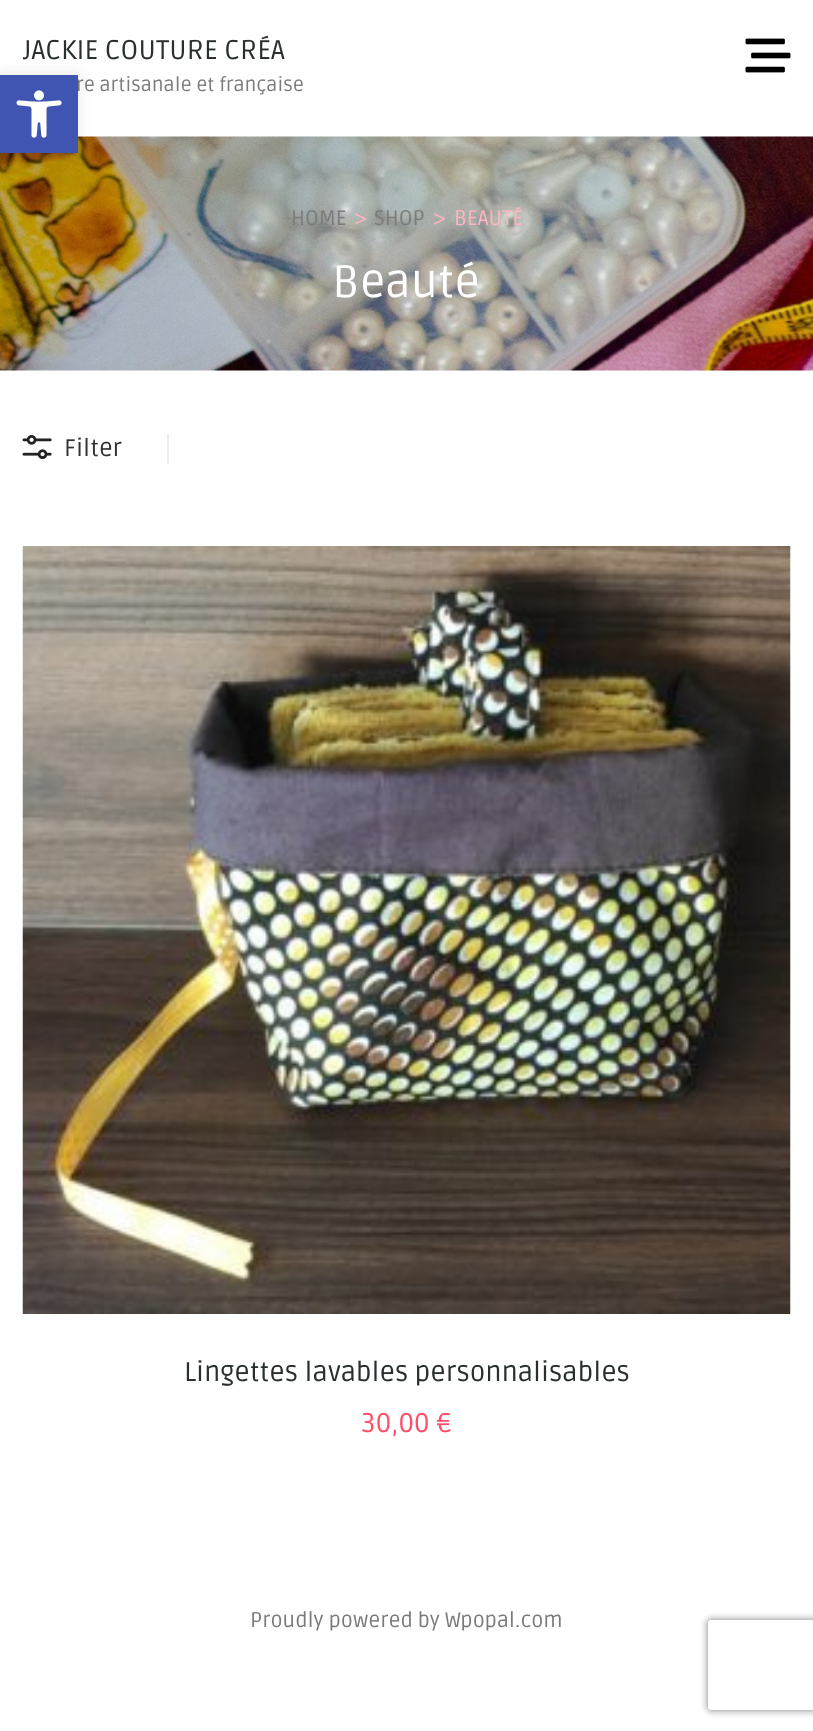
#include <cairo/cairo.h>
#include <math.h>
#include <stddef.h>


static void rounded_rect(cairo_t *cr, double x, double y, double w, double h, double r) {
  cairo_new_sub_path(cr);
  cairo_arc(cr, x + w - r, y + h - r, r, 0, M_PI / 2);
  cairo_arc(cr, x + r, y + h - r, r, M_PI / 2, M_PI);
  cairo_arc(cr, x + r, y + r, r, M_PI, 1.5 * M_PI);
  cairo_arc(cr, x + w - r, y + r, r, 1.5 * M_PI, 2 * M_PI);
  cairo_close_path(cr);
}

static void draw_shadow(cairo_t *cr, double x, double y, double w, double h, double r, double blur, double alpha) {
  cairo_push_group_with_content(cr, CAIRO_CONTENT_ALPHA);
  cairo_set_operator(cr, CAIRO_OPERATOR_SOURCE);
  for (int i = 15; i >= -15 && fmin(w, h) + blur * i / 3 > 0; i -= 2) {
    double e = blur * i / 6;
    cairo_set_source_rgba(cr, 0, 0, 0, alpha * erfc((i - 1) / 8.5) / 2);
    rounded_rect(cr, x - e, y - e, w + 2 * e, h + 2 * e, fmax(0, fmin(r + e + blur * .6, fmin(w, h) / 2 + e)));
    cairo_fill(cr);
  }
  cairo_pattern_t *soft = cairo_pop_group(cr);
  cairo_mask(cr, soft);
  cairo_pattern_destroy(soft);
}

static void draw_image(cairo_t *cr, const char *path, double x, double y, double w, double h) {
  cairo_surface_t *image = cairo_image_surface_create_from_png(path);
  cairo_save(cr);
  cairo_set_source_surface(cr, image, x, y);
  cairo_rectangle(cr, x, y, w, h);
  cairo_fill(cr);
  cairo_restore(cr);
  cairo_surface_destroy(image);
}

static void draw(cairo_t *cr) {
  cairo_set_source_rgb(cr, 1, 1, 1);
  cairo_paint(cr);
  draw_image(cr, "images/1.png", 745, 38, 46, 35);
  cairo_set_source_rgb(cr, 250 / 255.0, 250 / 255.0, 250 / 255.0);
  cairo_rectangle(cr, 0, 370, 813, 1);
  cairo_fill(cr);
  draw_image(cr, "images/2.png", 0, 136, 813, 235);
  draw_image(cr, "images/3.png", 22, 435, 30, 25);
  cairo_set_source_rgb(cr, 238 / 255.0, 238 / 255.0, 238 / 255.0);
  cairo_rectangle(cr, 167, 434, 2, 30);
  cairo_fill(cr);
  draw_image(cr, "images/4.png", 22, 546, 769, 768);
  cairo_set_source_rgb(cr, 0, 0, 0);
  draw_shadow(cr, 0, 75, 78, 78, 0, 7.5, 0.1);
  cairo_save(cr);
  cairo_set_fill_rule(cr, CAIRO_FILL_RULE_EVEN_ODD);
  cairo_new_path(cr);
  cairo_move_to(cr, 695, 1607);
  cairo_line_to(cr, 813, 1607);
  cairo_line_to(cr, 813, 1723);
  cairo_line_to(cr, 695, 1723);
  cairo_close_path(cr);
  cairo_move_to(cr, 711, 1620);
  cairo_line_to(cr, 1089, 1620);
  cairo_curve_to(cr, 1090.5, 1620, 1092, 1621.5, 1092, 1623);
  cairo_line_to(cr, 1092, 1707);
  cairo_curve_to(cr, 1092, 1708.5, 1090.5, 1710, 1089, 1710);
  cairo_line_to(cr, 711, 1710);
  cairo_curve_to(cr, 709.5, 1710, 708, 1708.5, 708, 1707);
  cairo_line_to(cr, 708, 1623);
  cairo_curve_to(cr, 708, 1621.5, 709.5, 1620, 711, 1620);
  cairo_close_path(cr);
  cairo_clip(cr);
  cairo_set_source_rgb(cr, 128 / 255.0, 128 / 255.0, 128 / 255.0);
  draw_shadow(cr, 708, 1620, 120, 90, 3, 4, 1);
  cairo_restore(cr);
  cairo_select_font_face(cr, "Ruda", CAIRO_FONT_SLANT_NORMAL, CAIRO_FONT_WEIGHT_NORMAL);
  cairo_set_font_size(cr, 27);
  cairo_set_source_rgb(cr, 41 / 255.0, 47 / 255.0, 47 / 255.0);
  cairo_move_to(cr, 23, 59);
  cairo_show_text(cr, "JACKIE COUTURE CRÉA");
  cairo_set_font_size(cr, 19.5);
  cairo_set_source_rgb(cr, 124 / 255.0, 122 / 255.0, 122 / 255.0);
  cairo_move_to(cr, 76, 91);
  cairo_show_text(cr, "re artisanale et française");
  cairo_set_font_size(cr, 21);
  cairo_move_to(cr, 291, 225);
  cairo_show_text(cr, "HOME");
  cairo_set_source_rgb(cr, 1, 180 / 255.0, 191 / 255.0);
  cairo_move_to(cr, 354, 225);
  cairo_show_text(cr, ">");
  cairo_set_source_rgb(cr, 124 / 255.0, 122 / 255.0, 122 / 255.0);
  cairo_move_to(cr, 374, 225);
  cairo_show_text(cr, "SHOP");
  cairo_set_source_rgb(cr, 1, 180 / 255.0, 191 / 255.0);
  cairo_move_to(cr, 433, 225);
  cairo_show_text(cr, ">");
  cairo_move_to(cr, 454, 225);
  cairo_show_text(cr, "BEAUTÉ");
  cairo_set_font_size(cr, 45);
  cairo_set_source_rgb(cr, 1, 1, 1);
  cairo_move_to(cr, 332, 297);
  cairo_show_text(cr, "Beauté");
  cairo_set_font_size(cr, 24);
  cairo_set_source_rgb(cr, 51 / 255.0, 51 / 255.0, 51 / 255.0);
  cairo_move_to(cr, 64, 456);
  cairo_show_text(cr, "Filter");
  cairo_set_font_size(cr, 27);
  cairo_set_source_rgb(cr, 41 / 255.0, 47 / 255.0, 47 / 255.0);
  cairo_move_to(cr, 184, 1381);
  cairo_show_text(cr, "Lingettes lavables personnalisables");
  cairo_set_source_rgb(cr, 1, 79 / 255.0, 105 / 255.0);
  cairo_move_to(cr, 361, 1432);
  cairo_show_text(cr, "30,00 €");
  cairo_set_font_size(cr, 21);
  cairo_set_source_rgb(cr, 124 / 255.0, 122 / 255.0, 122 / 255.0);
  cairo_move_to(cr, 250, 1627);
  cairo_show_text(cr, "Proudly powered by Wpopal.com");
  cairo_set_source_rgb(cr, 64 / 255.0, 84 / 255.0, 178 / 255.0);
  cairo_rectangle(cr, 0, 75, 78, 78);
  cairo_fill(cr);
  draw_image(cr, "images/5.png", 16, 90, 46, 48);
}

int main(void) {
  cairo_surface_t *surface = cairo_image_surface_create(CAIRO_FORMAT_RGB24, 813, 1731);
  cairo_t *cr = cairo_create(surface);
  cairo_font_options_t *options = cairo_font_options_create();
  cairo_font_options_set_hint_metrics(options, CAIRO_HINT_METRICS_OFF);
  cairo_font_options_set_hint_style(options, CAIRO_HINT_STYLE_NONE);
  cairo_set_font_options(cr, options);
  cairo_set_miter_limit(cr, 4);
  draw(cr);
  cairo_surface_write_to_png(surface, "out.png");
  cairo_font_options_destroy(options);
  cairo_destroy(cr);
  cairo_surface_destroy(surface);
  return 0;
}
